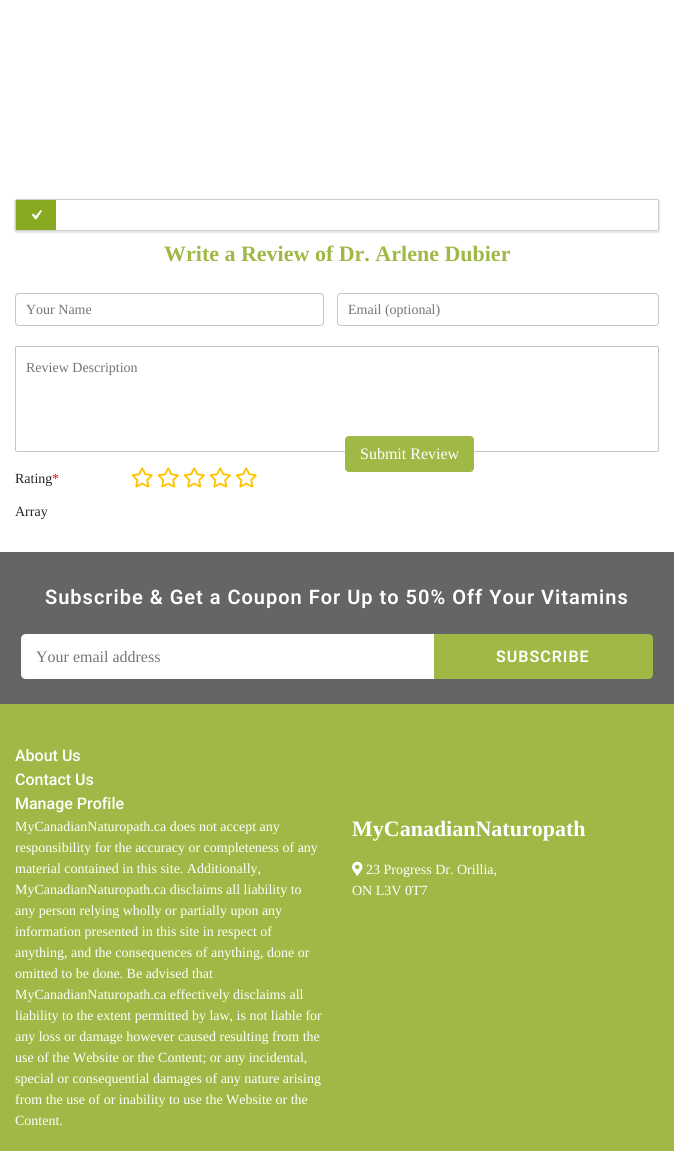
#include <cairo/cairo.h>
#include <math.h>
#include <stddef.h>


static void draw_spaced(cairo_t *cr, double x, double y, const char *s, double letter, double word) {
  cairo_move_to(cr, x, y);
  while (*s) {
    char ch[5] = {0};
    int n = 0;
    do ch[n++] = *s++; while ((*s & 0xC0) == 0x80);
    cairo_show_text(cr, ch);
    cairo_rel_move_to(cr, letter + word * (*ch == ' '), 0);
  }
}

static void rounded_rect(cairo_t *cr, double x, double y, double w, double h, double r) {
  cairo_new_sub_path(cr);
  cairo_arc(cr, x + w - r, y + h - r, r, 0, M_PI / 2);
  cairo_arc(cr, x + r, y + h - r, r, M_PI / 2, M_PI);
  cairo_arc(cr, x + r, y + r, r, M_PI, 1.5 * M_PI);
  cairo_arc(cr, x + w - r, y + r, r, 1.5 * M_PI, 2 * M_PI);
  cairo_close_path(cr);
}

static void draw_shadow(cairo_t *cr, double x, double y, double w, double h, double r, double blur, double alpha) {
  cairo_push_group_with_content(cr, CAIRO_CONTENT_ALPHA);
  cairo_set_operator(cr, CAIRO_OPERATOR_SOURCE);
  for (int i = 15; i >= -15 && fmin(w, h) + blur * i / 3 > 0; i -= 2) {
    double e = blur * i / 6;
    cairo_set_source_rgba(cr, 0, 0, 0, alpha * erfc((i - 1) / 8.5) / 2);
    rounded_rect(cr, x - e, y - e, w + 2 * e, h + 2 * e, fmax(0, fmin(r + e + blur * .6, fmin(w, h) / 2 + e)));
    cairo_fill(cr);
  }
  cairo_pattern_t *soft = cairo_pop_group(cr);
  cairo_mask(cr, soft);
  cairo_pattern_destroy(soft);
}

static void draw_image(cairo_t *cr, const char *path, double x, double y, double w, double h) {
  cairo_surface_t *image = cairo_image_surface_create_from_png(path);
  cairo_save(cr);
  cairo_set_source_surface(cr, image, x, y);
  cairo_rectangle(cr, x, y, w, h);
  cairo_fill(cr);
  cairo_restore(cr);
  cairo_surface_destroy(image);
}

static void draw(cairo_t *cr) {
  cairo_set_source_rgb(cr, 1, 1, 1);
  cairo_paint(cr);
  cairo_save(cr);
  cairo_set_fill_rule(cr, CAIRO_FILL_RULE_EVEN_ODD);
  cairo_new_path(cr);
  cairo_move_to(cr, 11, 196);
  cairo_line_to(cr, 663, 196);
  cairo_line_to(cr, 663, 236);
  cairo_line_to(cr, 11, 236);
  cairo_close_path(cr);
  cairo_move_to(cr, 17, 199);
  cairo_line_to(cr, 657, 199);
  cairo_curve_to(cr, 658, 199, 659, 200, 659, 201);
  cairo_line_to(cr, 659, 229);
  cairo_curve_to(cr, 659, 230, 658, 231, 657, 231);
  cairo_line_to(cr, 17, 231);
  cairo_curve_to(cr, 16, 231, 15, 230, 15, 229);
  cairo_line_to(cr, 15, 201);
  cairo_curve_to(cr, 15, 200, 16, 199, 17, 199);
  cairo_close_path(cr);
  cairo_clip(cr);
  cairo_set_source_rgb(cr, 0, 0, 0);
  draw_shadow(cr, 14, 199, 646, 34, 3, 0.5, 0.1);
  cairo_restore(cr);
  rounded_rect(cr, 15.5, 199.5, 643, 31, 1.5);
  cairo_set_source_rgb(cr, 204 / 255.0, 204 / 255.0, 204 / 255.0);
  cairo_set_line_width(cr, 1);
  cairo_stroke(cr);
  cairo_set_source_rgb(cr, 136 / 255.0, 170 / 255.0, 34 / 255.0);
  cairo_rectangle(cr, 16, 200, 40, 30);
  cairo_fill(cr);
  draw_image(cr, "images/1.png", 31, 210, 12, 10);
  rounded_rect(cr, 15.5, 293.5, 308, 32, 3.5);
  cairo_set_source_rgb(cr, 195 / 255.0, 196 / 255.0, 199 / 255.0);
  cairo_stroke(cr);
  rounded_rect(cr, 337.5, 293.5, 321, 32, 3.5);
  cairo_stroke(cr);
  rounded_rect(cr, 15.5, 346.5, 643, 105, 1.5);
  cairo_stroke(cr);
  cairo_set_source_rgb(cr, 160 / 255.0, 185 / 255.0, 70 / 255.0);
  rounded_rect(cr, 345, 436, 129, 36, 4);
  cairo_fill(cr);
  draw_image(cr, "images/2.png", 131, 467, 22, 21);
  draw_image(cr, "images/2.png", 157, 467, 22, 21);
  draw_image(cr, "images/2.png", 183, 467, 22, 21);
  draw_image(cr, "images/2.png", 209, 467, 22, 21);
  draw_image(cr, "images/2.png", 235, 467, 22, 21);
  cairo_set_source_rgb(cr, 101 / 255.0, 101 / 255.0, 101 / 255.0);
  cairo_rectangle(cr, 0, 552, 674, 152);
  cairo_fill(cr);
  cairo_set_source_rgb(cr, 1, 1, 1);
  cairo_new_path(cr);
  cairo_move_to(cr, 26, 634);
  cairo_line_to(cr, 440, 634);
  cairo_line_to(cr, 440, 679);
  cairo_line_to(cr, 26, 679);
  cairo_curve_to(cr, 23, 679, 21, 677, 21, 674);
  cairo_line_to(cr, 21, 639);
  cairo_curve_to(cr, 21, 636, 23, 634, 26, 634);
  cairo_close_path(cr);
  cairo_fill(cr);
  cairo_set_source_rgb(cr, 160 / 255.0, 185 / 255.0, 70 / 255.0);
  cairo_new_path(cr);
  cairo_move_to(cr, 434, 634);
  cairo_line_to(cr, 648, 634);
  cairo_curve_to(cr, 651, 634, 653, 636, 653, 639);
  cairo_line_to(cr, 653, 674);
  cairo_curve_to(cr, 653, 677, 651, 679, 648, 679);
  cairo_line_to(cr, 434, 679);
  cairo_close_path(cr);
  cairo_fill(cr);
  cairo_rectangle(cr, 0, 704, 674, 447);
  cairo_fill(cr);
  draw_image(cr, "images/3.png", 352, 861, 11, 15);
  cairo_select_font_face(cr, "Liberation Serif", CAIRO_FONT_SLANT_NORMAL, CAIRO_FONT_WEIGHT_BOLD);
  cairo_set_font_size(cr, 22);
  cairo_set_source_rgb(cr, 159 / 255.0, 184 / 255.0, 70 / 255.0);
  cairo_move_to(cr, 164, 261);
  cairo_show_text(cr, "Write a Review of Dr. Arlene Dubier");
  cairo_select_font_face(cr, "Liberation Serif", CAIRO_FONT_SLANT_NORMAL, CAIRO_FONT_WEIGHT_NORMAL);
  cairo_set_font_size(cr, 14);
  cairo_set_source_rgb(cr, 117 / 255.0, 117 / 255.0, 117 / 255.0);
  cairo_move_to(cr, 26, 314);
  cairo_show_text(cr, "Your Name");
  cairo_move_to(cr, 348, 314);
  cairo_show_text(cr, "Email (optional)");
  cairo_move_to(cr, 26, 372);
  cairo_show_text(cr, "Review Description");
  cairo_set_font_size(cr, 16);
  cairo_set_source_rgb(cr, 1, 1, 1);
  cairo_move_to(cr, 360, 459);
  cairo_show_text(cr, "Submit Review");
  cairo_set_font_size(cr, 14);
  cairo_set_source_rgb(cr, 33 / 255.0, 37 / 255.0, 41 / 255.0);
  cairo_move_to(cr, 15, 516);
  cairo_show_text(cr, "Array");
  cairo_move_to(cr, 15, 483);
  cairo_show_text(cr, "Rating");
  cairo_set_source_rgb(cr, 1, 0, 0);
  cairo_move_to(cr, 52, 483);
  cairo_show_text(cr, "*");
  cairo_select_font_face(cr, "Roboto SemiBold", CAIRO_FONT_SLANT_NORMAL, CAIRO_FONT_WEIGHT_NORMAL);
  cairo_set_font_size(cr, 20);
  cairo_set_source_rgb(cr, 1, 1, 1);
  draw_spaced(cr, 45, 604, "Subscribe & Get a Coupon For Up to 50% Off Your Vitamins", 1, 0);
  cairo_select_font_face(cr, "Liberation Serif", CAIRO_FONT_SLANT_NORMAL, CAIRO_FONT_WEIGHT_NORMAL);
  cairo_set_font_size(cr, 16);
  cairo_set_source_rgb(cr, 117 / 255.0, 117 / 255.0, 117 / 255.0);
  cairo_move_to(cr, 36, 662);
  cairo_show_text(cr, "Your email address");
  cairo_select_font_face(cr, "Roboto SemiBold", CAIRO_FONT_SLANT_NORMAL, CAIRO_FONT_WEIGHT_NORMAL);
  cairo_set_source_rgb(cr, 1, 1, 1);
  draw_spaced(cr, 496, 662, "SUBSCRIBE", 1, 0);
  cairo_select_font_face(cr, "Roboto Medium", CAIRO_FONT_SLANT_NORMAL, CAIRO_FONT_WEIGHT_NORMAL);
  cairo_move_to(cr, 15, 761);
  cairo_show_text(cr, "About Us");
  cairo_move_to(cr, 15, 785);
  cairo_show_text(cr, "Contact Us");
  cairo_move_to(cr, 15, 809);
  cairo_show_text(cr, "Manage Profile");
  cairo_select_font_face(cr, "Liberation Serif", CAIRO_FONT_SLANT_NORMAL, CAIRO_FONT_WEIGHT_NORMAL);
  cairo_set_font_size(cr, 14);
  cairo_move_to(cr, 15, 831);
  cairo_show_text(cr, "MyCanadianNaturopath.ca does not accept any");
  cairo_move_to(cr, 15, 852);
  cairo_show_text(cr, "responsibility for the accuracy or completeness of any");
  cairo_move_to(cr, 15, 873);
  cairo_show_text(cr, "material contained in this site. Additionally,");
  cairo_move_to(cr, 15, 894);
  cairo_show_text(cr, "MyCanadianNaturopath.ca disclaims all liability to");
  cairo_move_to(cr, 15, 915);
  cairo_show_text(cr, "any person relying wholly or partially upon any");
  cairo_move_to(cr, 15, 936);
  cairo_show_text(cr, "information presented in this site in respect of");
  cairo_move_to(cr, 15, 957);
  cairo_show_text(cr, "anything, and the consequences of anything, done or");
  cairo_move_to(cr, 15, 978);
  cairo_show_text(cr, "omitted to be done. Be advised that");
  cairo_move_to(cr, 15, 999);
  cairo_show_text(cr, "MyCanadianNaturopath.ca effectively disclaims all");
  cairo_move_to(cr, 15, 1020);
  cairo_show_text(cr, "liability to the extent permitted by law, is not liable for");
  cairo_move_to(cr, 15, 1041);
  cairo_show_text(cr, "any loss or damage however caused resulting from the");
  cairo_move_to(cr, 15, 1062);
  cairo_show_text(cr, "use of the Website or the Content; or any incidental,");
  cairo_move_to(cr, 15, 1083);
  cairo_show_text(cr, "special or consequential damages of any nature arising");
  cairo_move_to(cr, 15, 1104);
  cairo_show_text(cr, "from the use of or inability to use the Website or the");
  cairo_move_to(cr, 15, 1125);
  cairo_show_text(cr, "Content.");
  cairo_select_font_face(cr, "Liberation Serif", CAIRO_FONT_SLANT_NORMAL, CAIRO_FONT_WEIGHT_BOLD);
  cairo_set_font_size(cr, 22);
  cairo_move_to(cr, 352, 836);
  cairo_show_text(cr, "MyCanadianNaturopath");
  cairo_select_font_face(cr, "Liberation Serif", CAIRO_FONT_SLANT_NORMAL, CAIRO_FONT_WEIGHT_NORMAL);
  cairo_set_font_size(cr, 14);
  cairo_move_to(cr, 366, 874);
  cairo_show_text(cr, "23 Progress Dr. Orillia,");
  cairo_move_to(cr, 352, 895);
  cairo_show_text(cr, "ON L3V 0T7");
}

int main(void) {
  cairo_surface_t *surface = cairo_image_surface_create(CAIRO_FORMAT_RGB24, 674, 1151);
  cairo_t *cr = cairo_create(surface);
  cairo_font_options_t *options = cairo_font_options_create();
  cairo_font_options_set_hint_metrics(options, CAIRO_HINT_METRICS_OFF);
  cairo_font_options_set_hint_style(options, CAIRO_HINT_STYLE_NONE);
  cairo_set_font_options(cr, options);
  cairo_set_miter_limit(cr, 4);
  draw(cr);
  cairo_surface_write_to_png(surface, "out.png");
  cairo_font_options_destroy(options);
  cairo_destroy(cr);
  cairo_surface_destroy(surface);
  return 0;
}
